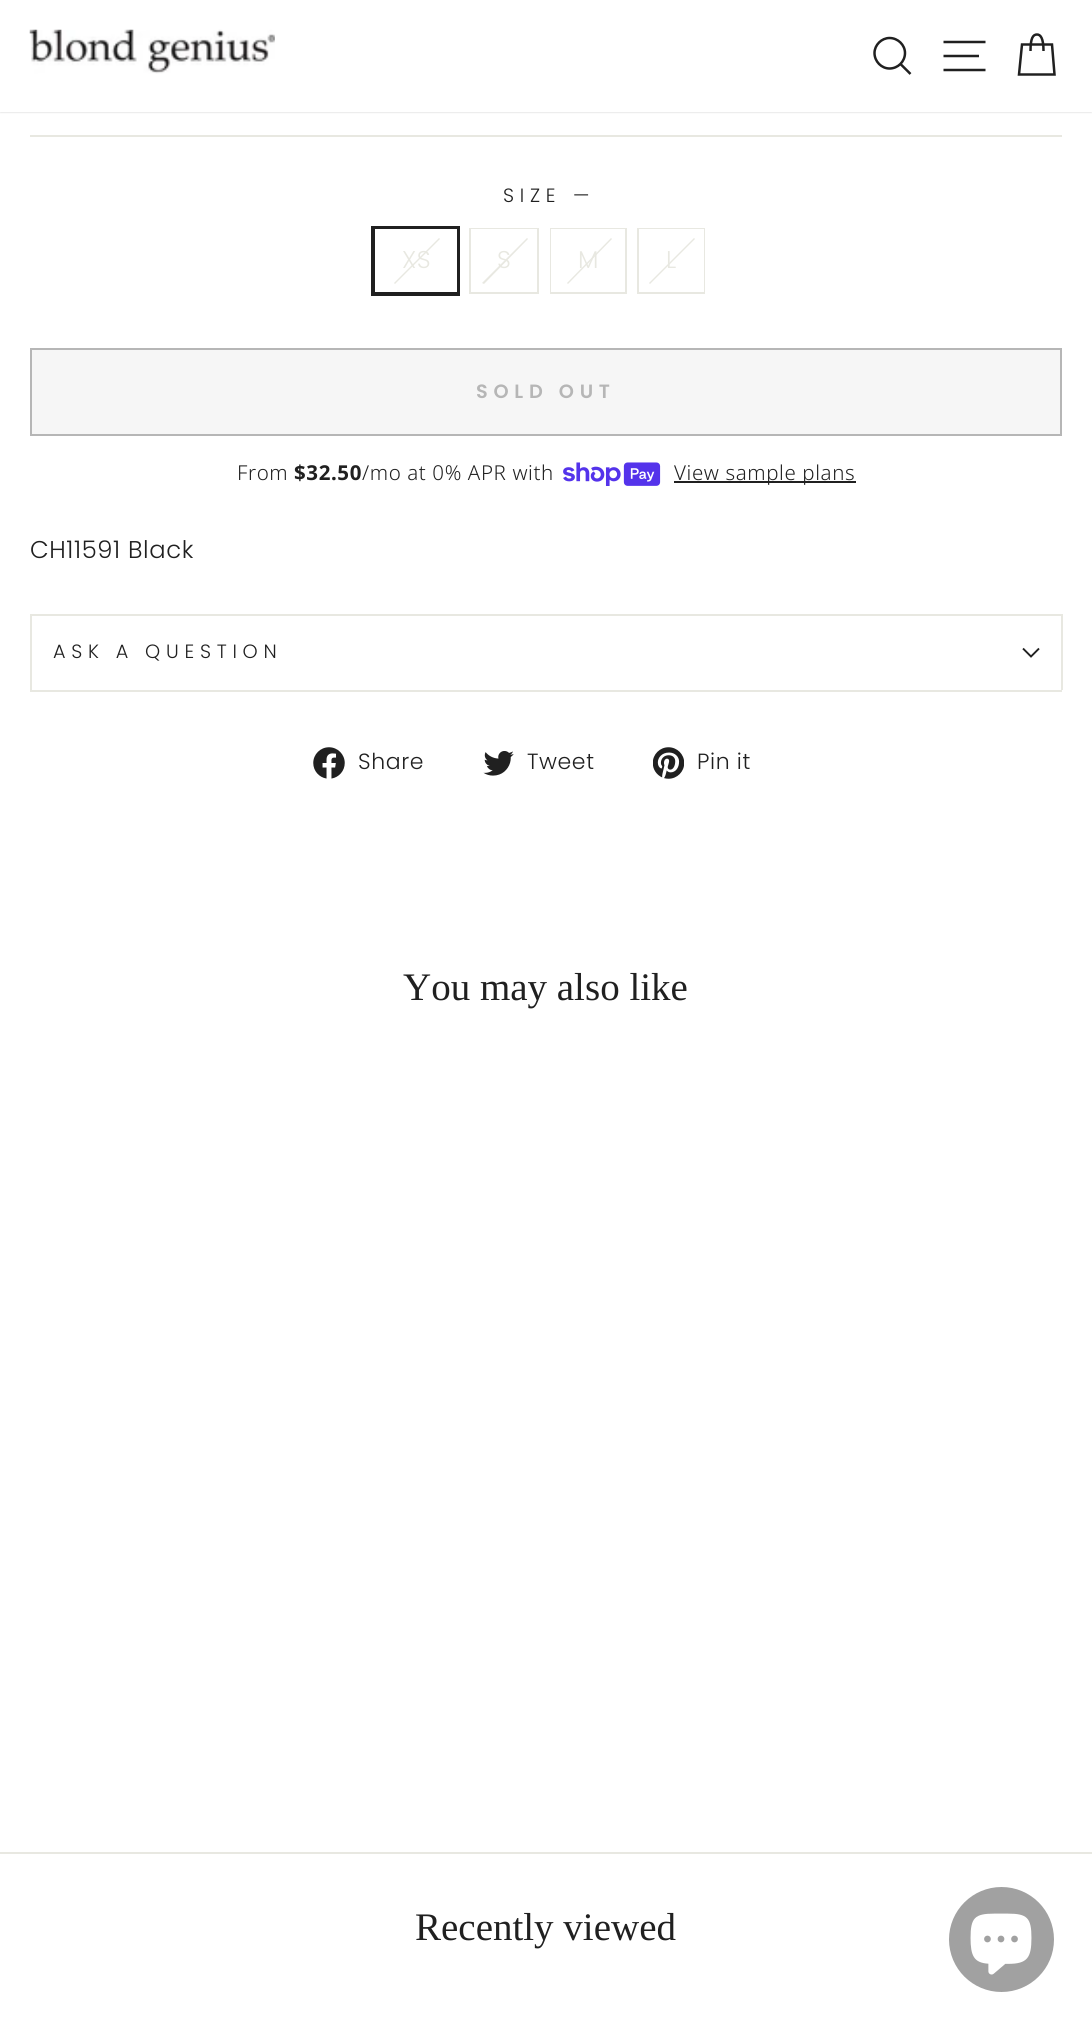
#include <cairo/cairo.h>
#include <math.h>
#include <stddef.h>


static void draw_spaced(cairo_t *cr, double x, double y, const char *s, double letter, double word) {
  cairo_move_to(cr, x, y);
  while (*s) {
    char ch[5] = {0};
    int n = 0;
    do ch[n++] = *s++; while ((*s & 0xC0) == 0x80);
    cairo_show_text(cr, ch);
    cairo_rel_move_to(cr, letter + word * (*ch == ' '), 0);
  }
}

static void rounded_rect(cairo_t *cr, double x, double y, double w, double h, double r) {
  cairo_new_sub_path(cr);
  cairo_arc(cr, x + w - r, y + h - r, r, 0, M_PI / 2);
  cairo_arc(cr, x + r, y + h - r, r, M_PI / 2, M_PI);
  cairo_arc(cr, x + r, y + r, r, M_PI, 1.5 * M_PI);
  cairo_arc(cr, x + w - r, y + r, r, 1.5 * M_PI, 2 * M_PI);
  cairo_close_path(cr);
}

static void draw_shadow(cairo_t *cr, double x, double y, double w, double h, double r, double blur, double alpha) {
  cairo_push_group_with_content(cr, CAIRO_CONTENT_ALPHA);
  cairo_set_operator(cr, CAIRO_OPERATOR_SOURCE);
  for (int i = 15; i >= -15 && fmin(w, h) + blur * i / 3 > 0; i -= 2) {
    double e = blur * i / 6;
    cairo_set_source_rgba(cr, 0, 0, 0, alpha * erfc((i - 1) / 8.5) / 2);
    rounded_rect(cr, x - e, y - e, w + 2 * e, h + 2 * e, fmax(0, fmin(r + e + blur * .6, fmin(w, h) / 2 + e)));
    cairo_fill(cr);
  }
  cairo_pattern_t *soft = cairo_pop_group(cr);
  cairo_mask(cr, soft);
  cairo_pattern_destroy(soft);
}

static void draw_image(cairo_t *cr, const char *path, double x, double y, double w, double h) {
  cairo_surface_t *image = cairo_image_surface_create_from_png(path);
  cairo_save(cr);
  cairo_set_source_surface(cr, image, x, y);
  cairo_rectangle(cr, x, y, w, h);
  cairo_fill(cr);
  cairo_restore(cr);
  cairo_surface_destroy(image);
}

static void draw(cairo_t *cr) {
  cairo_set_source_rgb(cr, 1, 1, 1);
  cairo_paint(cr);
  cairo_set_source_rgb(cr, 0, 0, 0);
  draw_shadow(cr, 0, 0, 1092, 112, 0, 1, 0.2);
  cairo_set_source_rgb(cr, 1, 1, 1);
  cairo_rectangle(cr, 0, 0, 1092, 112);
  cairo_fill(cr);
  draw_image(cr, "images/1.png", 29, 29, 246, 45);
  cairo_new_path(cr);
  cairo_move_to(cr, 905, 53);
  cairo_curve_to(cr, 905, 61.5, 898, 68.5, 889.5, 68.5);
  cairo_curve_to(cr, 881.5, 68.5, 874.5, 61.5, 874.5, 53);
  cairo_curve_to(cr, 874.5, 45, 881.5, 38, 889.5, 38);
  cairo_curve_to(cr, 898, 38, 905, 45, 905, 53);
  cairo_close_path(cr);
  cairo_move_to(cr, 910.5, 74);
  cairo_line_to(cr, 900.5, 64);
  cairo_set_source_rgb(cr, 32 / 255.0, 32 / 255.0, 32 / 255.0);
  cairo_set_line_width(cr, 2.5);
  cairo_stroke(cr);
  cairo_new_path(cr);
  cairo_move_to(cr, 943.5, 42);
  cairo_line_to(cr, 985.5, 42);
  cairo_move_to(cr, 943.5, 56);
  cairo_line_to(cr, 979, 56);
  cairo_move_to(cr, 943.5, 70);
  cairo_line_to(cr, 985.5, 70);
  cairo_stroke(cr);
  cairo_new_path(cr);
  cairo_move_to(cr, 1030.5, 51);
  cairo_curve_to(cr, 1030.5, 38, 1033, 34.5, 1037, 34.5);
  cairo_curve_to(cr, 1040.5, 34.5, 1043.5, 38, 1043.5, 51);
  cairo_move_to(cr, 1022, 44.5);
  cairo_line_to(cr, 1052, 44.5);
  cairo_line_to(cr, 1054.5, 74.5);
  cairo_line_to(cr, 1019, 74.5);
  cairo_close_path(cr);
  cairo_stroke(cr);
  cairo_set_source_rgb(cr, 232 / 255.0, 232 / 255.0, 225 / 255.0);
  cairo_rectangle(cr, 30, 135, 1032, 2);
  cairo_fill(cr);
  cairo_rectangle(cr, 373, 228, 85, 66);
  cairo_set_source_rgb(cr, 32 / 255.0, 32 / 255.0, 32 / 255.0);
  cairo_set_line_width(cr, 4);
  cairo_stroke(cr);
  cairo_set_source_rgb(cr, 1, 1, 1);
  cairo_rectangle(cr, 375, 229, 82, 63);
  cairo_fill(cr);
  cairo_set_source_rgb(cr, 232 / 255.0, 232 / 255.0, 225 / 255.0);
  cairo_new_path(cr);
  cairo_move_to(cr, 439, 238);
  cairo_line_to(cr, 440, 239);
  cairo_line_to(cr, 395, 284);
  cairo_line_to(cr, 394, 283);
  cairo_close_path(cr);
  cairo_fill(cr);
  cairo_rectangle(cr, 470, 229, 68, 64);
  cairo_set_line_width(cr, 2);
  cairo_stroke(cr);
  cairo_set_source_rgb(cr, 1, 1, 1);
  cairo_rectangle(cr, 471, 229, 66, 1);
  cairo_fill(cr);
  cairo_set_source_rgb(cr, 232 / 255.0, 232 / 255.0, 225 / 255.0);
  cairo_new_path(cr);
  cairo_move_to(cr, 527, 238);
  cairo_line_to(cr, 528, 239);
  cairo_line_to(cr, 484, 284);
  cairo_line_to(cr, 482, 283);
  cairo_close_path(cr);
  cairo_fill(cr);
  cairo_rectangle(cr, 551, 229, 75, 64);
  cairo_stroke(cr);
  cairo_set_source_rgb(cr, 1, 1, 1);
  cairo_rectangle(cr, 551, 229, 74, 63);
  cairo_fill(cr);
  cairo_set_source_rgb(cr, 232 / 255.0, 232 / 255.0, 225 / 255.0);
  cairo_new_path(cr);
  cairo_move_to(cr, 611, 238);
  cairo_line_to(cr, 612, 239);
  cairo_line_to(cr, 568, 284);
  cairo_line_to(cr, 567, 283);
  cairo_close_path(cr);
  cairo_fill(cr);
  cairo_rectangle(cr, 638, 229, 66, 64);
  cairo_stroke(cr);
  cairo_set_source_rgb(cr, 1, 1, 1);
  cairo_rectangle(cr, 639, 229, 65, 63);
  cairo_fill(cr);
  cairo_set_source_rgb(cr, 232 / 255.0, 232 / 255.0, 225 / 255.0);
  cairo_new_path(cr);
  cairo_move_to(cr, 694, 238);
  cairo_line_to(cr, 695, 239);
  cairo_line_to(cr, 650, 284);
  cairo_line_to(cr, 649, 283);
  cairo_close_path(cr);
  cairo_fill(cr);
  cairo_set_source_rgb(cr, 246 / 255.0, 246 / 255.0, 246 / 255.0);
  cairo_rectangle(cr, 31, 349, 1030, 86);
  cairo_fill_preserve(cr);
  cairo_set_source_rgb(cr, 182 / 255.0, 182 / 255.0, 182 / 255.0);
  cairo_stroke(cr);
  draw_image(cr, "images/2.png", 563, 462, 98, 24);
  cairo_set_source_rgb(cr, 32 / 255.0, 32 / 255.0, 32 / 255.0);
  cairo_rectangle(cr, 674, 481, 182, 2);
  cairo_fill(cr);
  cairo_set_source_rgb(cr, 232 / 255.0, 232 / 255.0, 225 / 255.0);
  cairo_rectangle(cr, 30, 690, 1032, 2);
  cairo_fill(cr);
  cairo_rectangle(cr, 30, 614, 1032, 2);
  cairo_fill(cr);
  cairo_rectangle(cr, 1061, 614, 2, 76);
  cairo_fill(cr);
  cairo_rectangle(cr, 30, 614, 2, 76);
  cairo_fill(cr);
  cairo_new_path(cr);
  cairo_move_to(cr, 1023, 648.5);
  cairo_line_to(cr, 1031, 656.5);
  cairo_line_to(cr, 1039, 648.5);
  cairo_set_source_rgb(cr, 32 / 255.0, 32 / 255.0, 32 / 255.0);
  cairo_set_line_width(cr, 1.9);
  cairo_stroke(cr);
  draw_image(cr, "images/3.png", 313, 747, 32, 32);
  draw_image(cr, "images/4.png", 483, 751, 31, 25);
  draw_image(cr, "images/5.png", 653, 747, 31, 32);
  cairo_set_source_rgb(cr, 232 / 255.0, 232 / 255.0, 225 / 255.0);
  cairo_rectangle(cr, 0, 1852, 1092, 2);
  cairo_fill(cr);
  cairo_set_source_rgb(cr, 161 / 255.0, 161 / 255.0, 161 / 255.0);
  cairo_arc(cr, 1001.5, 1939.5, 52.5, 0, 2 * M_PI);
  cairo_fill(cr);
  draw_image(cr, "images/6.png", 970, 1913, 62, 62);
  cairo_select_font_face(cr, "Poppins Light", CAIRO_FONT_SLANT_NORMAL, CAIRO_FONT_WEIGHT_NORMAL);
  cairo_set_font_size(cr, 19.25);
  cairo_set_source_rgb(cr, 32 / 255.0, 32 / 255.0, 32 / 255.0);
  draw_spaced(cr, 503, 202, "SIZE", 5.75, 0);
  cairo_move_to(cr, 573, 202);
  cairo_show_text(cr, "—");
  cairo_set_font_size(cr, 24.25);
  cairo_set_source_rgb(cr, 232 / 255.0, 232 / 255.0, 225 / 255.0);
  draw_spaced(cr, 402, 268, "XS", 0.6, 0);
  draw_spaced(cr, 497, 268, "S", 0.6, 0);
  draw_spaced(cr, 578, 268, "M", 0.6, 0);
  draw_spaced(cr, 666, 268, "L", 0.6, 0);
  cairo_select_font_face(cr, "Poppins SemiBold", CAIRO_FONT_SLANT_NORMAL, CAIRO_FONT_WEIGHT_NORMAL);
  cairo_set_font_size(cr, 19.25);
  cairo_set_source_rgb(cr, 182 / 255.0, 182 / 255.0, 182 / 255.0);
  draw_spaced(cr, 476, 398, "SOLD OUT", 5.75, 0);
  cairo_select_font_face(cr, "Noto Sans Light", CAIRO_FONT_SLANT_NORMAL, CAIRO_FONT_WEIGHT_NORMAL);
  cairo_set_font_size(cr, 20.5);
  cairo_set_source_rgb(cr, 32 / 255.0, 32 / 255.0, 32 / 255.0);
  draw_spaced(cr, 237, 480, "From", 0.6, 0);
  cairo_select_font_face(cr, "Noto Sans", CAIRO_FONT_SLANT_NORMAL, CAIRO_FONT_WEIGHT_BOLD);
  draw_spaced(cr, 294, 480, "$32.50", 0.6, 0);
  cairo_select_font_face(cr, "Noto Sans Light", CAIRO_FONT_SLANT_NORMAL, CAIRO_FONT_WEIGHT_NORMAL);
  draw_spaced(cr, 362, 480, "/mo at 0% APR with", 0.6, 0);
  draw_spaced(cr, 674, 480, "View sample plans", 0.6, 0);
  cairo_select_font_face(cr, "Poppins Light", CAIRO_FONT_SLANT_NORMAL, CAIRO_FONT_WEIGHT_NORMAL);
  cairo_set_font_size(cr, 24.25);
  draw_spaced(cr, 30, 558, "CH11591 Black", 0.6, 0);
  cairo_set_font_size(cr, 19.25);
  draw_spaced(cr, 53, 658, "ASK A QUESTION", 5.75, 0);
  cairo_set_font_size(cr, 22);
  draw_spaced(cr, 358, 769, "Share", 0.6, 0);
  draw_spaced(cr, 527, 769, "Tweet", 0.6, 0);
  draw_spaced(cr, 697, 769, "Pin it", 0.6, 0);
  cairo_select_font_face(cr, "Liberation Serif", CAIRO_FONT_SLANT_NORMAL, CAIRO_FONT_WEIGHT_NORMAL);
  cairo_set_font_size(cr, 39);
  cairo_move_to(cr, 403, 1000);
  cairo_show_text(cr, "You may also like");
  cairo_move_to(cr, 415, 1940);
  cairo_show_text(cr, "Recently viewed");
}

int main(void) {
  cairo_surface_t *surface = cairo_image_surface_create(CAIRO_FORMAT_RGB24, 1092, 2027);
  cairo_t *cr = cairo_create(surface);
  cairo_font_options_t *options = cairo_font_options_create();
  cairo_font_options_set_hint_metrics(options, CAIRO_HINT_METRICS_OFF);
  cairo_font_options_set_hint_style(options, CAIRO_HINT_STYLE_NONE);
  cairo_set_font_options(cr, options);
  cairo_set_miter_limit(cr, 4);
  draw(cr);
  cairo_surface_write_to_png(surface, "out.png");
  cairo_font_options_destroy(options);
  cairo_destroy(cr);
  cairo_surface_destroy(surface);
  return 0;
}
